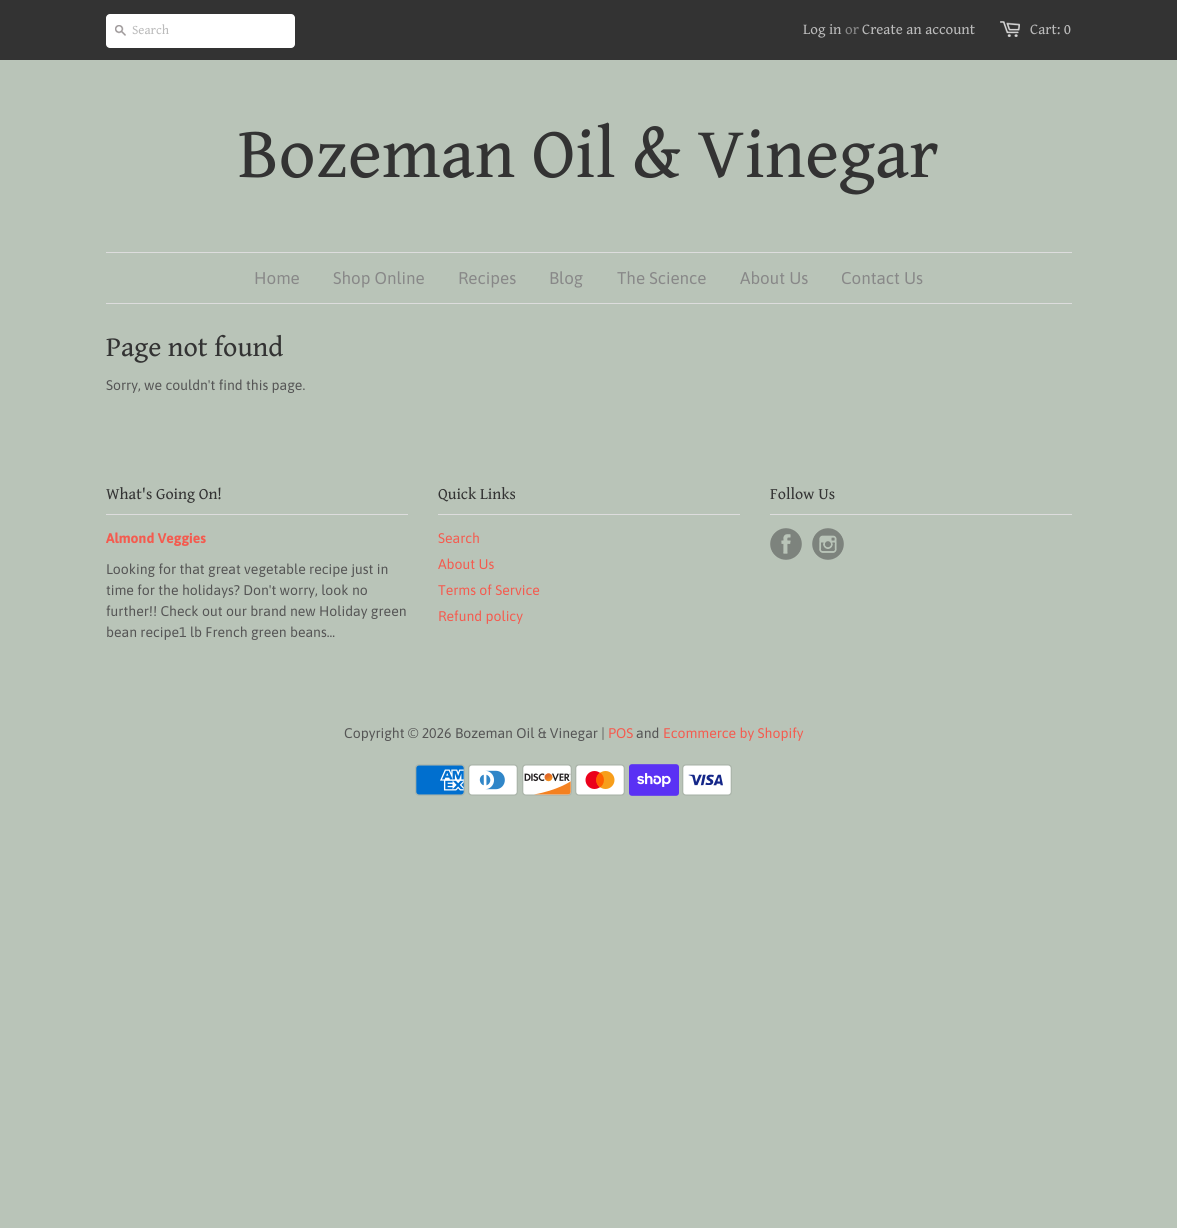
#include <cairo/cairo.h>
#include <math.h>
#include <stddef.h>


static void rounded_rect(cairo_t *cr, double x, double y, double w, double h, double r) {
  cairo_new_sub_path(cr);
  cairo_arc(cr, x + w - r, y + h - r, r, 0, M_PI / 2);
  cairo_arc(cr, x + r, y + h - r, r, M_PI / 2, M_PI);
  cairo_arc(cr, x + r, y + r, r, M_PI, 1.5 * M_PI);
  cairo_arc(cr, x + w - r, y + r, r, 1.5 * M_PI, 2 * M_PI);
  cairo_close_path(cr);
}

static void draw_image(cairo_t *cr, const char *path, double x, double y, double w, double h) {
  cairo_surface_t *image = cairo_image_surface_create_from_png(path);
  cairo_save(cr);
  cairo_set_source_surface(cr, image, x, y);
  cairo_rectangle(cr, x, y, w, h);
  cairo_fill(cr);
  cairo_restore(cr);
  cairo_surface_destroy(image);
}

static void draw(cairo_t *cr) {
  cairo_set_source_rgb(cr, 185 / 255.0, 196 / 255.0, 184 / 255.0);
  cairo_paint(cr);
  cairo_set_source_rgb(cr, 51 / 255.0, 51 / 255.0, 51 / 255.0);
  cairo_rectangle(cr, 0, 0, 1177, 60);
  cairo_fill(cr);
  cairo_set_source_rgb(cr, 1, 1, 1);
  rounded_rect(cr, 106, 14, 189, 34, 4);
  cairo_fill(cr);
  draw_image(cr, "images/1.png", 115, 25, 11, 11);
  draw_image(cr, "images/2.png", 1000, 21, 20, 16);
  cairo_set_source_rgb(cr, 221 / 255.0, 221 / 255.0, 221 / 255.0);
  cairo_rectangle(cr, 106, 252, 966, 1);
  cairo_fill(cr);
  cairo_rectangle(cr, 106, 303, 966, 1);
  cairo_fill(cr);
  cairo_rectangle(cr, 106, 514, 302, 1);
  cairo_fill(cr);
  cairo_rectangle(cr, 438, 514, 302, 1);
  cairo_fill(cr);
  cairo_rectangle(cr, 770, 514, 302, 1);
  cairo_fill(cr);
  draw_image(cr, "images/3.png", 770, 528, 32, 32);
  draw_image(cr, "images/4.png", 812, 528, 32, 32);
  draw_image(cr, "images/5.png", 415, 764, 50, 32);
  draw_image(cr, "images/6.png", 468, 764, 50, 32);
  draw_image(cr, "images/7.png", 522, 764, 50, 32);
  draw_image(cr, "images/8.png", 575, 764, 50, 32);
  draw_image(cr, "images/9.png", 629, 764, 50, 32);
  draw_image(cr, "images/10.png", 682, 764, 50, 32);
  cairo_select_font_face(cr, "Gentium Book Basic", CAIRO_FONT_SLANT_NORMAL, CAIRO_FONT_WEIGHT_NORMAL);
  cairo_set_font_size(cr, 13);
  cairo_set_source_rgb(cr, 187 / 255.0, 187 / 255.0, 187 / 255.0);
  cairo_move_to(cr, 132, 34);
  cairo_show_text(cr, "Search");
  cairo_set_font_size(cr, 15);
  cairo_move_to(cr, 803, 34);
  cairo_show_text(cr, "Log in");
  cairo_set_source_rgb(cr, 136 / 255.0, 136 / 255.0, 136 / 255.0);
  cairo_move_to(cr, 845, 34);
  cairo_show_text(cr, "or");
  cairo_set_source_rgb(cr, 187 / 255.0, 187 / 255.0, 187 / 255.0);
  cairo_move_to(cr, 862, 34);
  cairo_show_text(cr, "Create an account");
  cairo_move_to(cr, 1030, 34);
  cairo_show_text(cr, "Cart: 0");
  cairo_set_font_size(cr, 72);
  cairo_set_source_rgb(cr, 51 / 255.0, 51 / 255.0, 51 / 255.0);
  cairo_move_to(cr, 238, 177);
  cairo_show_text(cr, "Bozeman Oil & Vinegar");
  cairo_select_font_face(cr, "Asap", CAIRO_FONT_SLANT_NORMAL, CAIRO_FONT_WEIGHT_NORMAL);
  cairo_set_font_size(cr, 17);
  cairo_set_source_rgb(cr, 136 / 255.0, 136 / 255.0, 136 / 255.0);
  cairo_move_to(cr, 254, 284);
  cairo_show_text(cr, "Home");
  cairo_move_to(cr, 333, 284);
  cairo_show_text(cr, "Shop Online");
  cairo_move_to(cr, 458, 284);
  cairo_show_text(cr, "Recipes");
  cairo_move_to(cr, 549, 284);
  cairo_show_text(cr, "Blog");
  cairo_move_to(cr, 617, 284);
  cairo_show_text(cr, "The Science");
  cairo_move_to(cr, 740, 284);
  cairo_show_text(cr, "About Us");
  cairo_move_to(cr, 841, 284);
  cairo_show_text(cr, "Contact Us");
  cairo_select_font_face(cr, "Gentium Book Basic", CAIRO_FONT_SLANT_NORMAL, CAIRO_FONT_WEIGHT_NORMAL);
  cairo_set_font_size(cr, 28);
  cairo_set_source_rgb(cr, 51 / 255.0, 51 / 255.0, 51 / 255.0);
  cairo_move_to(cr, 106, 356);
  cairo_show_text(cr, "Page not found");
  cairo_select_font_face(cr, "Asap", CAIRO_FONT_SLANT_NORMAL, CAIRO_FONT_WEIGHT_NORMAL);
  cairo_set_font_size(cr, 14);
  cairo_set_source_rgb(cr, 85 / 255.0, 85 / 255.0, 85 / 255.0);
  cairo_move_to(cr, 106, 390);
  cairo_show_text(cr, "Sorry, we couldn't find this page.");
  cairo_select_font_face(cr, "Gentium Book Basic", CAIRO_FONT_SLANT_NORMAL, CAIRO_FONT_WEIGHT_NORMAL);
  cairo_set_font_size(cr, 16);
  cairo_set_source_rgb(cr, 51 / 255.0, 51 / 255.0, 51 / 255.0);
  cairo_move_to(cr, 106, 499);
  cairo_show_text(cr, "What's Going On!");
  cairo_select_font_face(cr, "Asap", CAIRO_FONT_SLANT_NORMAL, CAIRO_FONT_WEIGHT_BOLD);
  cairo_set_font_size(cr, 14);
  cairo_set_source_rgb(cr, 244 / 255.0, 91 / 255.0, 79 / 255.0);
  cairo_move_to(cr, 106, 543);
  cairo_show_text(cr, "Almond Veggies");
  cairo_select_font_face(cr, "Asap", CAIRO_FONT_SLANT_NORMAL, CAIRO_FONT_WEIGHT_NORMAL);
  cairo_set_source_rgb(cr, 85 / 255.0, 85 / 255.0, 85 / 255.0);
  cairo_move_to(cr, 106, 574);
  cairo_show_text(cr, "Looking for that great vegetable recipe just in");
  cairo_move_to(cr, 106, 595);
  cairo_show_text(cr, "time for the holidays? Don't worry, look no");
  cairo_move_to(cr, 106, 616);
  cairo_show_text(cr, "further!! Check out our brand new Holiday green");
  cairo_move_to(cr, 106, 637);
  cairo_show_text(cr, "bean recipe1 lb French green beans...");
  cairo_select_font_face(cr, "Gentium Book Basic", CAIRO_FONT_SLANT_NORMAL, CAIRO_FONT_WEIGHT_NORMAL);
  cairo_set_font_size(cr, 16);
  cairo_set_source_rgb(cr, 51 / 255.0, 51 / 255.0, 51 / 255.0);
  cairo_move_to(cr, 438, 499);
  cairo_show_text(cr, "Quick Links");
  cairo_select_font_face(cr, "Asap", CAIRO_FONT_SLANT_NORMAL, CAIRO_FONT_WEIGHT_NORMAL);
  cairo_set_font_size(cr, 14);
  cairo_set_source_rgb(cr, 244 / 255.0, 91 / 255.0, 79 / 255.0);
  cairo_move_to(cr, 438, 543);
  cairo_show_text(cr, "Search");
  cairo_move_to(cr, 438, 569);
  cairo_show_text(cr, "About Us");
  cairo_move_to(cr, 438, 595);
  cairo_show_text(cr, "Terms of Service");
  cairo_move_to(cr, 438, 621);
  cairo_show_text(cr, "Refund policy");
  cairo_select_font_face(cr, "Gentium Book Basic", CAIRO_FONT_SLANT_NORMAL, CAIRO_FONT_WEIGHT_NORMAL);
  cairo_set_font_size(cr, 16);
  cairo_set_source_rgb(cr, 51 / 255.0, 51 / 255.0, 51 / 255.0);
  cairo_move_to(cr, 770, 499);
  cairo_show_text(cr, "Follow Us");
  cairo_select_font_face(cr, "Asap", CAIRO_FONT_SLANT_NORMAL, CAIRO_FONT_WEIGHT_NORMAL);
  cairo_set_font_size(cr, 14);
  cairo_set_source_rgb(cr, 85 / 255.0, 85 / 255.0, 85 / 255.0);
  cairo_move_to(cr, 344, 738);
  cairo_show_text(cr, "Copyright © 2026 Bozeman Oil & Vinegar |");
  cairo_set_source_rgb(cr, 244 / 255.0, 91 / 255.0, 79 / 255.0);
  cairo_move_to(cr, 608, 738);
  cairo_show_text(cr, "POS");
  cairo_set_source_rgb(cr, 85 / 255.0, 85 / 255.0, 85 / 255.0);
  cairo_move_to(cr, 636, 738);
  cairo_show_text(cr, "and");
  cairo_set_source_rgb(cr, 244 / 255.0, 91 / 255.0, 79 / 255.0);
  cairo_move_to(cr, 663, 738);
  cairo_show_text(cr, "Ecommerce by Shopify");
}

int main(void) {
  cairo_surface_t *surface = cairo_image_surface_create(CAIRO_FORMAT_RGB24, 1177, 1228);
  cairo_t *cr = cairo_create(surface);
  cairo_font_options_t *options = cairo_font_options_create();
  cairo_font_options_set_hint_metrics(options, CAIRO_HINT_METRICS_OFF);
  cairo_font_options_set_hint_style(options, CAIRO_HINT_STYLE_NONE);
  cairo_set_font_options(cr, options);
  cairo_set_miter_limit(cr, 4);
  draw(cr);
  cairo_surface_write_to_png(surface, "out.png");
  cairo_font_options_destroy(options);
  cairo_destroy(cr);
  cairo_surface_destroy(surface);
  return 0;
}
